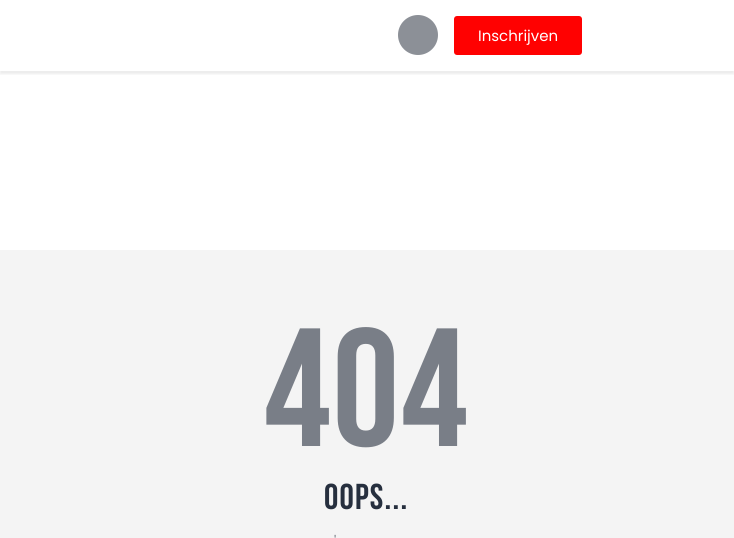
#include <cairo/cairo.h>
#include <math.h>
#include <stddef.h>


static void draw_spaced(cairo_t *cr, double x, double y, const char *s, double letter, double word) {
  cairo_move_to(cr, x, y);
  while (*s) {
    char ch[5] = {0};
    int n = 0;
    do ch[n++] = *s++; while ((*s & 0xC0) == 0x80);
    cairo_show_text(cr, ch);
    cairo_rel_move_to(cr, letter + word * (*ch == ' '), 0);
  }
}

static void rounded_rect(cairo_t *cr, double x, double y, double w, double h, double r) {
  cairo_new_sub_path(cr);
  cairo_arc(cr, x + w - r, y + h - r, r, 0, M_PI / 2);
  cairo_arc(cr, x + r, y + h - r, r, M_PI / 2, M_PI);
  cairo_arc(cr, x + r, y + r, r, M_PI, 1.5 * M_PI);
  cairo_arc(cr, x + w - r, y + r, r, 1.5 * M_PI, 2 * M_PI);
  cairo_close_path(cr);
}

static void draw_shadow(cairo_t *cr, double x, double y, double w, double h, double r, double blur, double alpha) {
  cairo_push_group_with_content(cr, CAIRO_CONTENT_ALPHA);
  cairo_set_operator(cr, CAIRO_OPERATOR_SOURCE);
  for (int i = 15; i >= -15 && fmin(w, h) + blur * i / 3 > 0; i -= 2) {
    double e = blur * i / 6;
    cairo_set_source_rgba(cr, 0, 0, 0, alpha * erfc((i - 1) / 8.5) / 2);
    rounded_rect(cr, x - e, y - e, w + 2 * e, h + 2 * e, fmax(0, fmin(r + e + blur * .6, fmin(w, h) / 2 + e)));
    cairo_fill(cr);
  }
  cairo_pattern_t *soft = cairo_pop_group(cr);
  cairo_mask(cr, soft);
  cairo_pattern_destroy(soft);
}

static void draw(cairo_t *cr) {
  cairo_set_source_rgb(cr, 244 / 255.0, 244 / 255.0, 244 / 255.0);
  cairo_paint(cr);
  cairo_set_source_rgb(cr, 1, 1, 1);
  cairo_rectangle(cr, 0, 0, 734, 250);
  cairo_fill(cr);
  cairo_save(cr);
  cairo_rectangle(cr, 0, 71, 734, 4);
  cairo_clip(cr);
  cairo_set_source_rgb(cr, 0, 0, 0);
  draw_shadow(cr, 0, 3, 734, 71, 0, 1.5, 0.08);
  cairo_restore(cr);
  cairo_set_source_rgb(cr, 140 / 255.0, 144 / 255.0, 151 / 255.0);
  cairo_arc(cr, 418, 35, 20, 0, 2 * M_PI);
  cairo_fill(cr);
  cairo_set_source_rgb(cr, 1, 1 / 255.0, 1 / 255.0);
  rounded_rect(cr, 454, 16, 128, 39, 3);
  cairo_fill(cr);
  cairo_select_font_face(cr, "Poppins", CAIRO_FONT_SLANT_NORMAL, CAIRO_FONT_WEIGHT_NORMAL);
  cairo_set_font_size(cr, 15);
  cairo_set_source_rgb(cr, 1, 1, 1);
  cairo_move_to(cr, 478, 41);
  cairo_show_text(cr, "Inschrijven");
  cairo_select_font_face(cr, "Bebas Neue", CAIRO_FONT_SLANT_NORMAL, CAIRO_FONT_WEIGHT_BOLD);
  cairo_set_font_size(cr, 168);
  cairo_set_source_rgb(cr, 121 / 255.0, 126 / 255.0, 135 / 255.0);
  draw_spaced(cr, 264, 446, "404", 2, 0);
  cairo_set_font_size(cr, 36);
  cairo_set_source_rgb(cr, 38 / 255.0, 47 / 255.0, 62 / 255.0);
  draw_spaced(cr, 324, 509, "Oops...", 1.25, 0);
  cairo_select_font_face(cr, "Poppins", CAIRO_FONT_SLANT_NORMAL, CAIRO_FONT_WEIGHT_NORMAL);
  cairo_set_font_size(cr, 14);
  cairo_set_source_rgb(cr, 121 / 255.0, 126 / 255.0, 135 / 255.0);
  cairo_move_to(cr, 334, 546);
  cairo_show_text(cr, "'");
}

int main(void) {
  cairo_surface_t *surface = cairo_image_surface_create(CAIRO_FORMAT_RGB24, 734, 538);
  cairo_t *cr = cairo_create(surface);
  cairo_font_options_t *options = cairo_font_options_create();
  cairo_font_options_set_hint_metrics(options, CAIRO_HINT_METRICS_OFF);
  cairo_font_options_set_hint_style(options, CAIRO_HINT_STYLE_NONE);
  cairo_set_font_options(cr, options);
  cairo_set_miter_limit(cr, 4);
  draw(cr);
  cairo_surface_write_to_png(surface, "out.png");
  cairo_font_options_destroy(options);
  cairo_destroy(cr);
  cairo_surface_destroy(surface);
  return 0;
}
